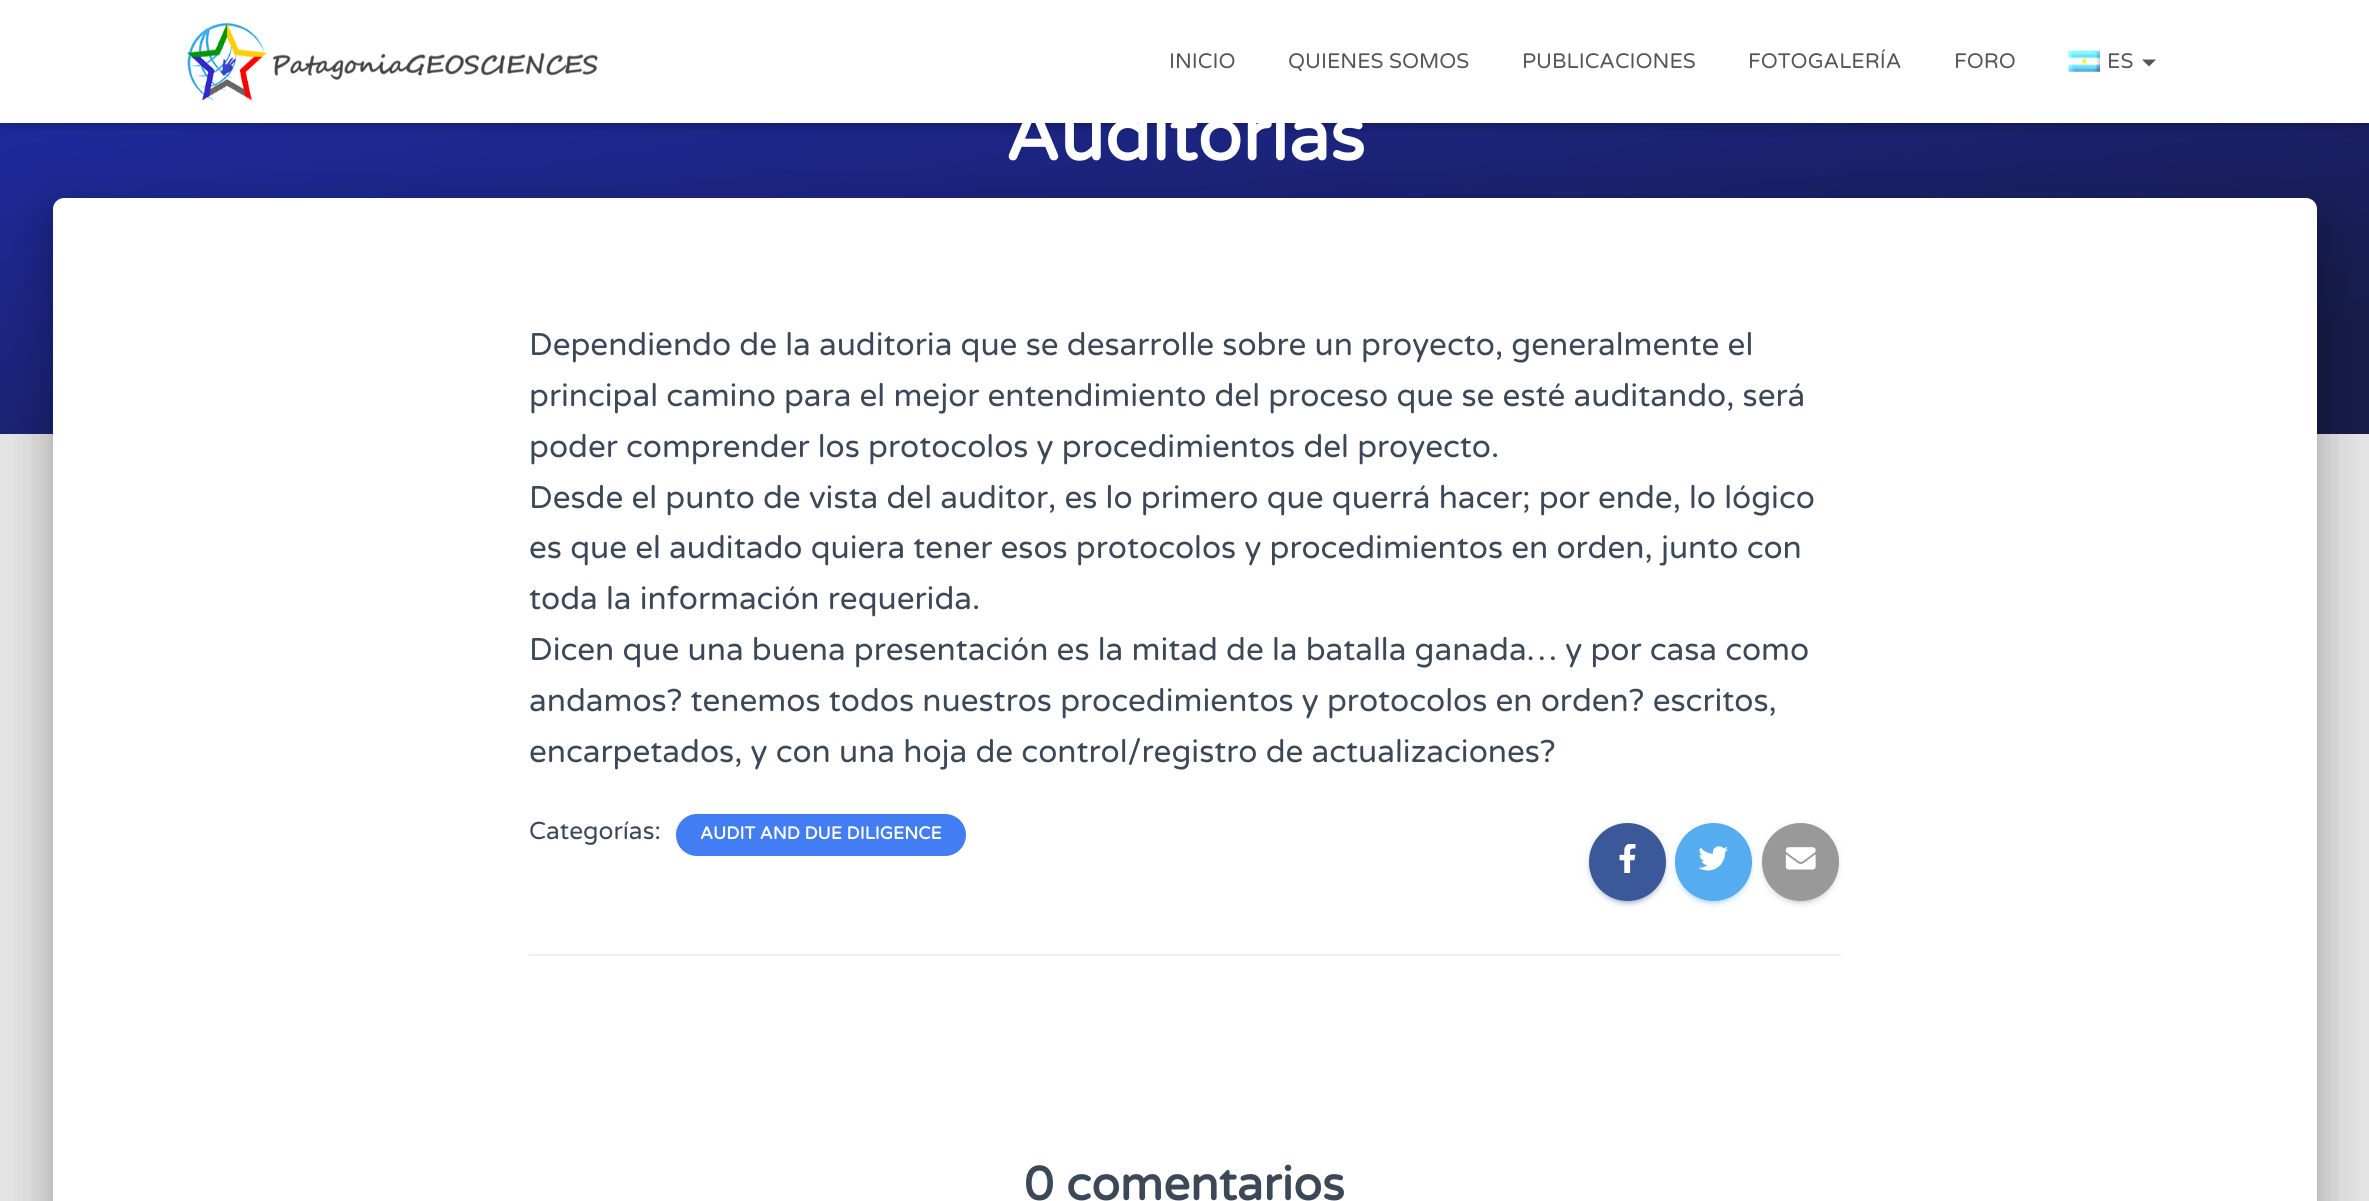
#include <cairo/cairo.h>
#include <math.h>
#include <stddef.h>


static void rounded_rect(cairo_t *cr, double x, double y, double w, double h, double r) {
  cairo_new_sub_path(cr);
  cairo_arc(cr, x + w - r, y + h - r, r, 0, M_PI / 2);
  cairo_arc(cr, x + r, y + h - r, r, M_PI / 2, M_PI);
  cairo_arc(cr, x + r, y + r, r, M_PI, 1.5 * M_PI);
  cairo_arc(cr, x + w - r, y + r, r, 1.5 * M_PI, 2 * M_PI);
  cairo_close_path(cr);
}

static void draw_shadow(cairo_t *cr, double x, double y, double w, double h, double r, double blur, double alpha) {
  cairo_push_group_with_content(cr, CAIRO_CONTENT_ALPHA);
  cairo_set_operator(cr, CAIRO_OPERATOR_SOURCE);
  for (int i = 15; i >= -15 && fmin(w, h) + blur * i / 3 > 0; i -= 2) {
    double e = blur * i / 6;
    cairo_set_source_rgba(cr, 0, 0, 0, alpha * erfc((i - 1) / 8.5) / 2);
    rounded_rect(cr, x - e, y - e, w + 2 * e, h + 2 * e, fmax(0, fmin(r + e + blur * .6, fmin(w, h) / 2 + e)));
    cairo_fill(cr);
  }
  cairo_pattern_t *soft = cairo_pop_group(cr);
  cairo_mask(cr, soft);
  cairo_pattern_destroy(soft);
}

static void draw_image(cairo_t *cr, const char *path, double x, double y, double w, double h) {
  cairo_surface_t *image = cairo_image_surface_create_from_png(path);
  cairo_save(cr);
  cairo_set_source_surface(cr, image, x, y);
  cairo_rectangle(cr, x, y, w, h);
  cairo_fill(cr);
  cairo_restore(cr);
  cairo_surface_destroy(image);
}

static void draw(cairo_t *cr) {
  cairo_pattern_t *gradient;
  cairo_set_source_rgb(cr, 229 / 255.0, 229 / 255.0, 229 / 255.0);
  cairo_paint(cr);
  gradient = cairo_pattern_create_linear(1280, 626, 1090, -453);
  cairo_pattern_add_color_stop_rgba(gradient, 0.1, 23 / 255.0, 28 / 255.0, 73 / 255.0, 1);
  cairo_pattern_add_color_stop_rgba(gradient, 1, 34 / 255.0, 50 / 255.0, 211 / 255.0, 1);
  cairo_set_source(cr, gradient);
  cairo_pattern_destroy(gradient);
  cairo_rectangle(cr, 0, 123, 2369, 311);
  cairo_fill(cr);
  cairo_set_source_rgb(cr, 0, 0, 0);
  draw_shadow(cr, 4, 11, 2362, 115, 0, 4.5, 0.1);
  draw_shadow(cr, 0, 2, 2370, 122, 0, 9, 0.12);
  draw_shadow(cr, 11, 12, 2348, 102, 0, 9, 0.42);
  draw_shadow(cr, 44, 200, 2282, 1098, 19, 26, 0.12);
  cairo_set_source_rgb(cr, 1, 1, 1);
  cairo_rectangle(cr, 0, 0, 2369, 123);
  cairo_fill(cr);
  draw_image(cr, "images/1.png", 187, 22, 411, 79);
  draw_image(cr, "images/2.png", 2068, 50, 32, 22);
  cairo_set_source_rgb(cr, 85 / 255.0, 85 / 255.0, 85 / 255.0);
  cairo_new_path(cr);
  cairo_move_to(cr, 2142, 59.5);
  cairo_line_to(cr, 2156, 59.5);
  cairo_line_to(cr, 2149, 66.5);
  cairo_close_path(cr);
  cairo_fill(cr);
  cairo_set_source_rgb(cr, 0, 0, 0);
  draw_shadow(cr, 61, 221, 2247, 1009, 2, 9, 0.2);
  draw_shadow(cr, 49, 222, 2272, 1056, 14, 21, 0.14);
  cairo_set_source_rgb(cr, 1, 1, 1);
  cairo_new_path(cr);
  cairo_move_to(cr, 64, 198);
  cairo_line_to(cr, 2306, 198);
  cairo_curve_to(cr, 2312, 198, 2317, 203, 2317, 209);
  cairo_line_to(cr, 2317, 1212);
  cairo_line_to(cr, 53, 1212);
  cairo_line_to(cr, 53, 209);
  cairo_curve_to(cr, 53, 203, 58, 198, 64, 198);
  cairo_close_path(cr);
  cairo_fill(cr);
  cairo_set_source_rgb(cr, 66 / 255.0, 125 / 255.0, 244 / 255.0);
  rounded_rect(cr, 676, 814, 290, 42, 21);
  cairo_fill(cr);
  cairo_set_source_rgb(cr, 59 / 255.0, 89 / 255.0, 152 / 255.0);
  draw_shadow(cr, 1589, 824, 77, 79, 38.5, 4.5, 0.12);
  draw_shadow(cr, 1593, 831, 70, 72, 35, 1, 0.2);
  draw_shadow(cr, 1589, 826, 77, 79, 38.5, 2, 0.14);
  cairo_set_source_rgb(cr, 59 / 255.0, 89 / 255.0, 152 / 255.0);
  rounded_rect(cr, 1589, 823, 77, 78, 38.5);
  cairo_fill(cr);
  draw_image(cr, "images/3.png", 1619, 844, 17, 29);
  cairo_set_source_rgb(cr, 85 / 255.0, 172 / 255.0, 238 / 255.0);
  draw_shadow(cr, 1675, 824, 77, 79, 38.5, 4.5, 0.12);
  draw_shadow(cr, 1678, 831, 70, 72, 35, 1, 0.2);
  draw_shadow(cr, 1675, 826, 77, 79, 38.5, 2, 0.14);
  cairo_set_source_rgb(cr, 85 / 255.0, 172 / 255.0, 238 / 255.0);
  rounded_rect(cr, 1675, 823, 77, 78, 38.5);
  cairo_fill(cr);
  draw_image(cr, "images/4.png", 1698, 846, 30, 25);
  cairo_set_source_rgb(cr, 153 / 255.0, 153 / 255.0, 153 / 255.0);
  draw_shadow(cr, 1762, 824, 77, 79, 38.5, 4.5, 0.12);
  draw_shadow(cr, 1766, 831, 70, 72, 35, 1, 0.2);
  draw_shadow(cr, 1762, 826, 77, 79, 38.5, 2, 0.14);
  cairo_set_source_rgb(cr, 153 / 255.0, 153 / 255.0, 153 / 255.0);
  rounded_rect(cr, 1762, 823, 77, 78, 38.5);
  cairo_fill(cr);
  draw_image(cr, "images/5.png", 1785, 847, 31, 23);
  cairo_set_source_rgb(cr, 238 / 255.0, 238 / 255.0, 238 / 255.0);
  cairo_rectangle(cr, 529, 954, 1312, 2);
  cairo_fill(cr);
  cairo_select_font_face(cr, "Varela Round", CAIRO_FONT_SLANT_NORMAL, CAIRO_FONT_WEIGHT_NORMAL);
  cairo_set_font_size(cr, 21);
  cairo_set_source_rgb(cr, 85 / 255.0, 85 / 255.0, 85 / 255.0);
  cairo_move_to(cr, 1169, 68);
  cairo_show_text(cr, "INICIO");
  cairo_move_to(cr, 1288, 68);
  cairo_show_text(cr, "QUIENES SOMOS");
  cairo_move_to(cr, 1522, 68);
  cairo_show_text(cr, "PUBLICACIONES");
  cairo_move_to(cr, 1748, 68);
  cairo_show_text(cr, "FOTOGALERÍA");
  cairo_move_to(cr, 1954, 68);
  cairo_show_text(cr, "FORO");
  cairo_move_to(cr, 2107, 68);
  cairo_show_text(cr, "ES");
  cairo_select_font_face(cr, "Varela Round", CAIRO_FONT_SLANT_NORMAL, CAIRO_FONT_WEIGHT_BOLD);
  cairo_set_font_size(cr, 73.5);
  cairo_set_source_rgb(cr, 1, 1, 1);
  cairo_move_to(cr, 1005, 160);
  cairo_show_text(cr, "Auditorías");
  cairo_select_font_face(cr, "Varela Round", CAIRO_FONT_SLANT_NORMAL, CAIRO_FONT_WEIGHT_NORMAL);
  cairo_set_font_size(cr, 31.5);
  cairo_set_source_rgb(cr, 60 / 255.0, 72 / 255.0, 88 / 255.0);
  cairo_move_to(cr, 529, 355);
  cairo_show_text(cr, "Dependiendo de la auditoria que se desarrolle sobre un proyecto, generalmente el");
  cairo_move_to(cr, 529, 406);
  cairo_show_text(cr, "principal camino para el mejor entendimiento del proceso que se esté auditando, será");
  cairo_move_to(cr, 529, 457);
  cairo_show_text(cr, "poder comprender los protocolos y procedimientos del proyecto.");
  cairo_move_to(cr, 529, 508);
  cairo_show_text(cr, "Desde el punto de vista del auditor, es lo primero que querrá hacer; por ende, lo lógico");
  cairo_move_to(cr, 529, 558);
  cairo_show_text(cr, "es que el auditado quiera tener esos protocolos y procedimientos en orden, junto con");
  cairo_move_to(cr, 529, 609);
  cairo_show_text(cr, "toda la información requerida.");
  cairo_move_to(cr, 529, 660);
  cairo_show_text(cr, "Dicen que una buena presentación es la mitad de la batalla ganada… y por casa como");
  cairo_move_to(cr, 529, 711);
  cairo_show_text(cr, "andamos? tenemos todos nuestros procedimientos y protocolos en orden? escritos,");
  cairo_move_to(cr, 529, 762);
  cairo_show_text(cr, "encarpetados, y con una hoja de control/registro de actualizaciones?");
  cairo_set_font_size(cr, 24.5);
  cairo_move_to(cr, 529, 839);
  cairo_show_text(cr, "Categorías:");
  cairo_select_font_face(cr, "Varela Round", CAIRO_FONT_SLANT_NORMAL, CAIRO_FONT_WEIGHT_BOLD);
  cairo_set_font_size(cr, 17.5);
  cairo_set_source_rgb(cr, 1, 1, 1);
  cairo_move_to(cr, 700, 839);
  cairo_show_text(cr, "AUDIT AND DUE DILIGENCE");
  cairo_set_font_size(cr, 47.25);
  cairo_set_source_rgb(cr, 60 / 255.0, 72 / 255.0, 88 / 255.0);
  cairo_move_to(cr, 1024, 1200);
  cairo_show_text(cr, "0 comentarios");
}

int main(void) {
  cairo_surface_t *surface = cairo_image_surface_create(CAIRO_FORMAT_RGB24, 2369, 1201);
  cairo_t *cr = cairo_create(surface);
  cairo_font_options_t *options = cairo_font_options_create();
  cairo_font_options_set_hint_metrics(options, CAIRO_HINT_METRICS_OFF);
  cairo_font_options_set_hint_style(options, CAIRO_HINT_STYLE_NONE);
  cairo_set_font_options(cr, options);
  cairo_set_miter_limit(cr, 4);
  draw(cr);
  cairo_surface_write_to_png(surface, "out.png");
  cairo_font_options_destroy(options);
  cairo_destroy(cr);
  cairo_surface_destroy(surface);
  return 0;
}
